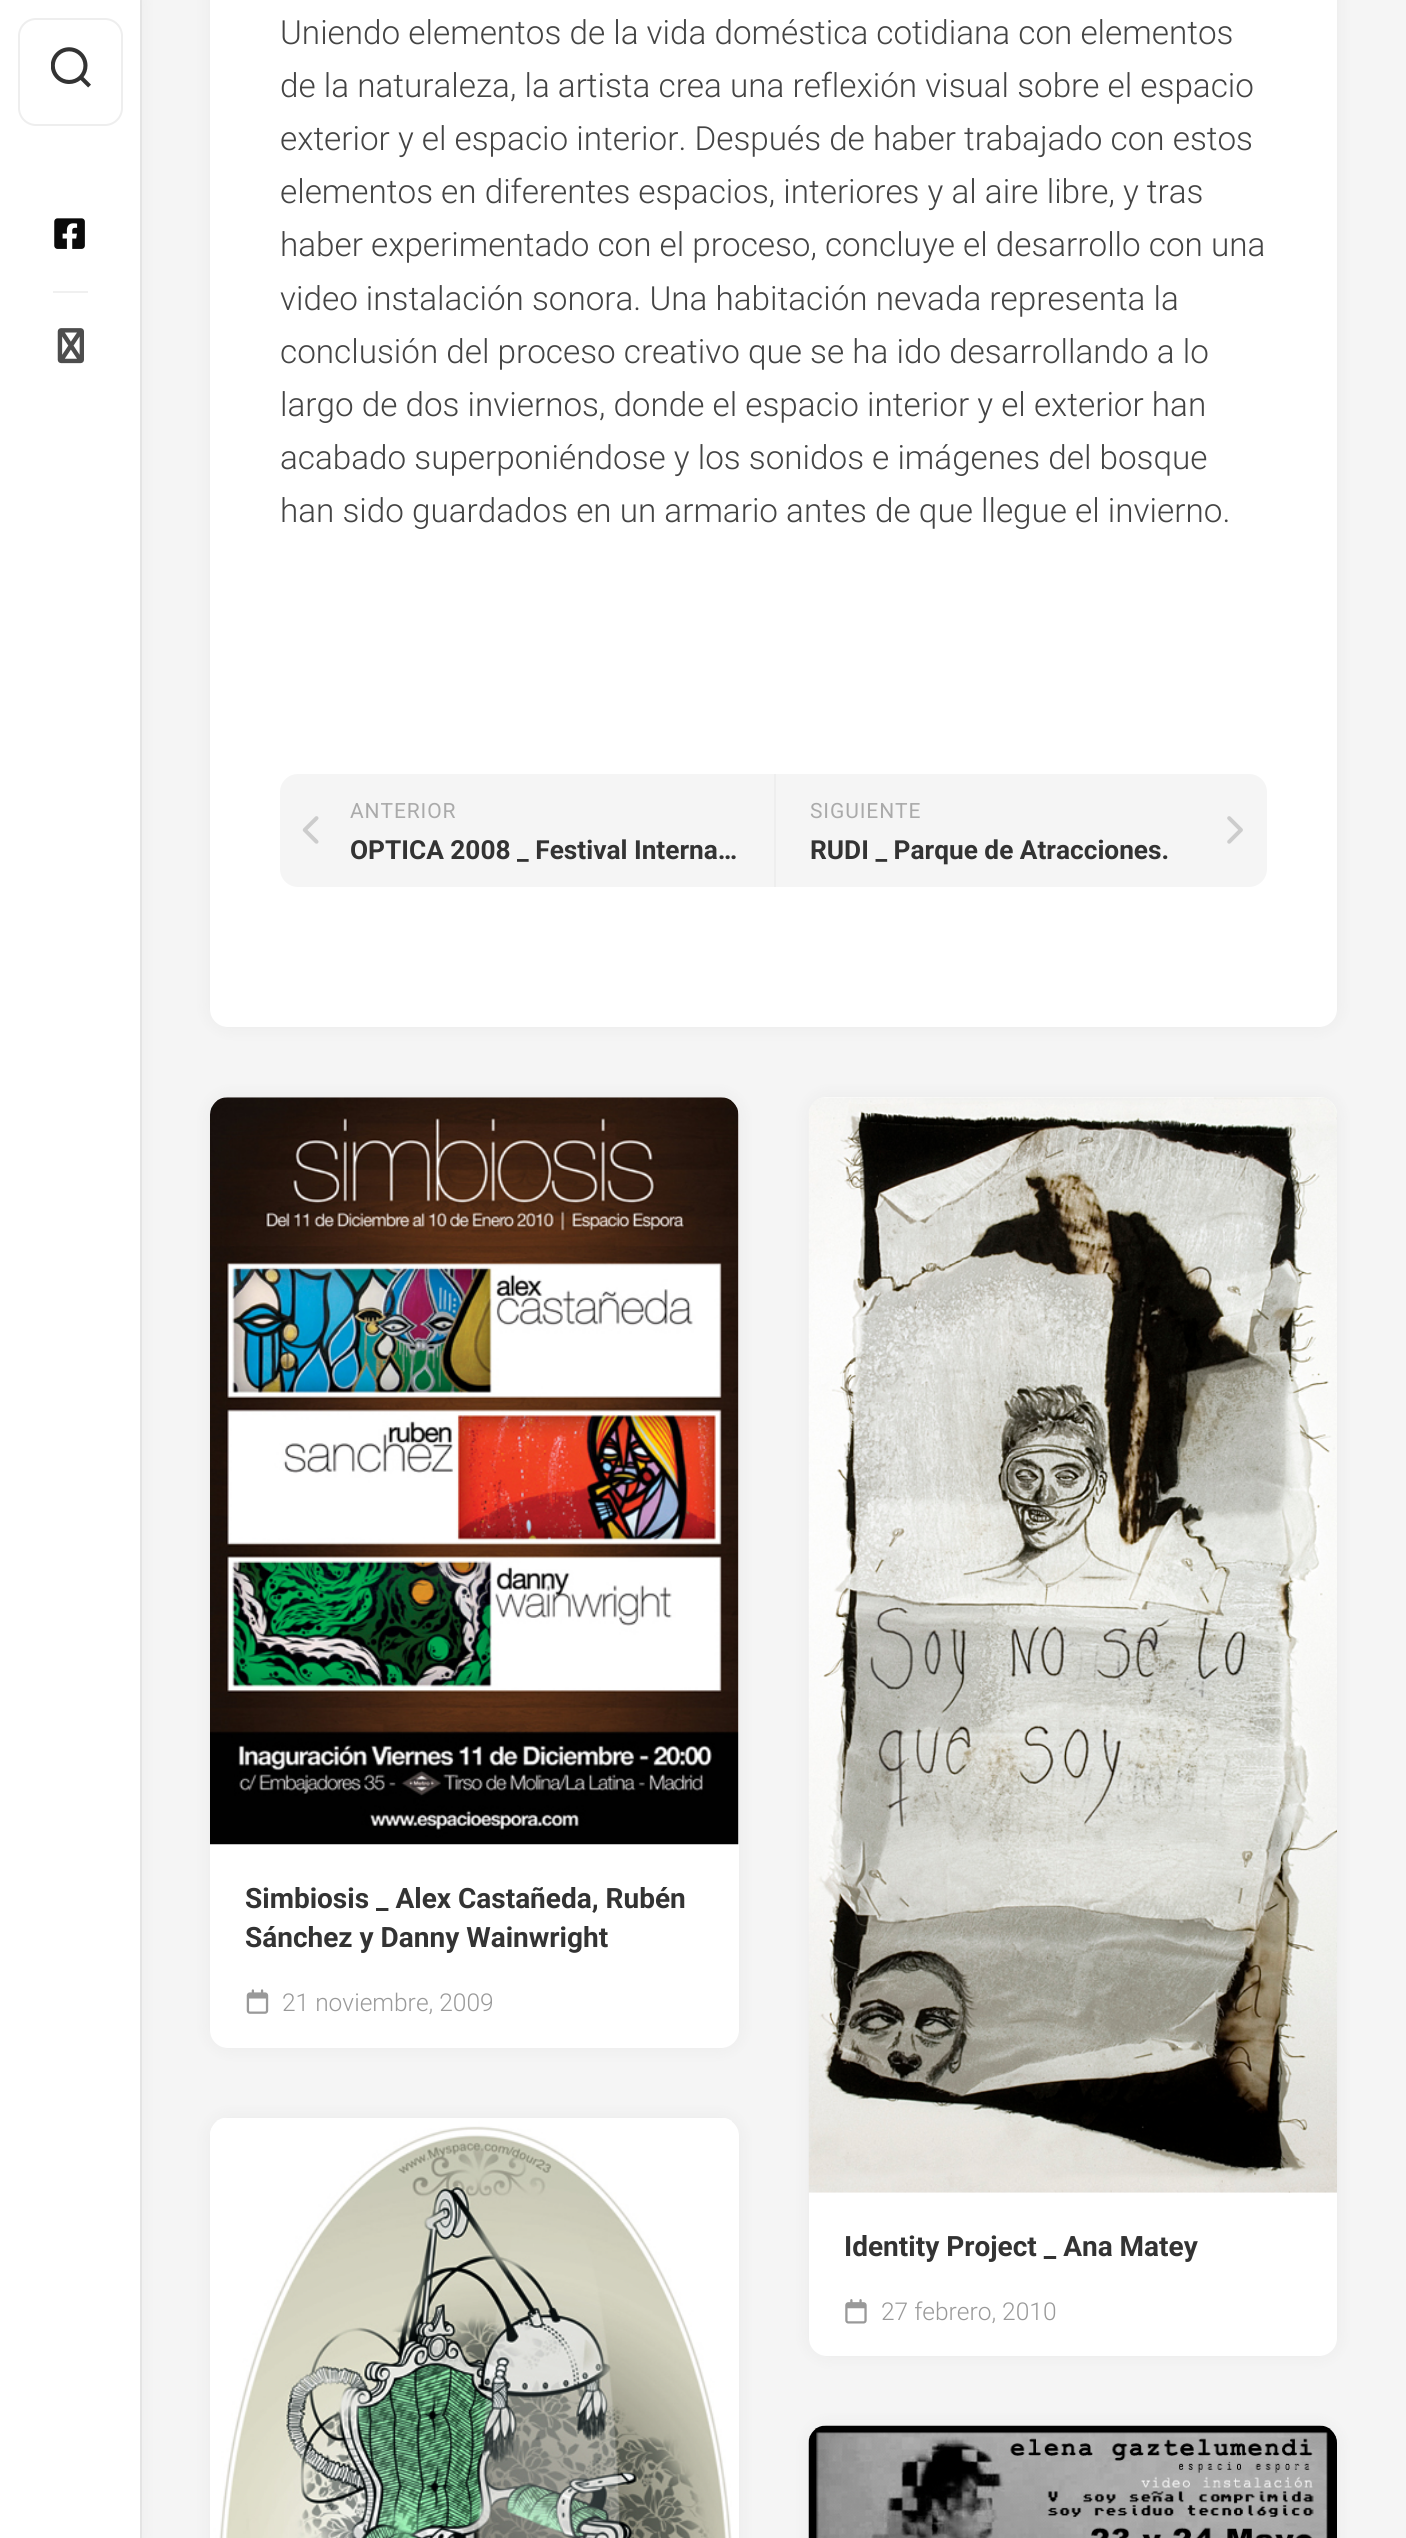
#include <cairo/cairo.h>
#include <math.h>
#include <stddef.h>


static void draw_spaced(cairo_t *cr, double x, double y, const char *s, double letter, double word) {
  cairo_move_to(cr, x, y);
  while (*s) {
    char ch[5] = {0};
    int n = 0;
    do ch[n++] = *s++; while ((*s & 0xC0) == 0x80);
    cairo_show_text(cr, ch);
    cairo_rel_move_to(cr, letter + word * (*ch == ' '), 0);
  }
}

static void rounded_rect(cairo_t *cr, double x, double y, double w, double h, double r) {
  cairo_new_sub_path(cr);
  cairo_arc(cr, x + w - r, y + h - r, r, 0, M_PI / 2);
  cairo_arc(cr, x + r, y + h - r, r, M_PI / 2, M_PI);
  cairo_arc(cr, x + r, y + r, r, M_PI, 1.5 * M_PI);
  cairo_arc(cr, x + w - r, y + r, r, 1.5 * M_PI, 2 * M_PI);
  cairo_close_path(cr);
}

static void draw_shadow(cairo_t *cr, double x, double y, double w, double h, double r, double blur, double alpha) {
  cairo_push_group_with_content(cr, CAIRO_CONTENT_ALPHA);
  cairo_set_operator(cr, CAIRO_OPERATOR_SOURCE);
  for (int i = 15; i >= -15 && fmin(w, h) + blur * i / 3 > 0; i -= 2) {
    double e = blur * i / 6;
    cairo_set_source_rgba(cr, 0, 0, 0, alpha * erfc((i - 1) / 8.5) / 2);
    rounded_rect(cr, x - e, y - e, w + 2 * e, h + 2 * e, fmax(0, fmin(r + e + blur * .6, fmin(w, h) / 2 + e)));
    cairo_fill(cr);
  }
  cairo_pattern_t *soft = cairo_pop_group(cr);
  cairo_mask(cr, soft);
  cairo_pattern_destroy(soft);
}

static void draw_image(cairo_t *cr, const char *path, double x, double y, double w, double h) {
  cairo_surface_t *image = cairo_image_surface_create_from_png(path);
  cairo_save(cr);
  cairo_set_source_surface(cr, image, x, y);
  cairo_rectangle(cr, x, y, w, h);
  cairo_fill(cr);
  cairo_restore(cr);
  cairo_surface_destroy(image);
}

static void draw(cairo_t *cr) {
  cairo_set_source_rgb(cr, 245 / 255.0, 245 / 255.0, 245 / 255.0);
  cairo_paint(cr);
  cairo_set_source_rgb(cr, 233 / 255.0, 233 / 255.0, 233 / 255.0);
  cairo_rectangle(cr, 140, 0, 2, 2538);
  cairo_fill(cr);
  cairo_set_source_rgb(cr, 0, 0, 0);
  draw_shadow(cr, 0, 0, 140, 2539, 0, 9, 0.05);
  cairo_set_source_rgb(cr, 1, 1, 1);
  cairo_rectangle(cr, 0, 0, 140, 2538);
  cairo_fill(cr);
  rounded_rect(cr, 19, 19, 103, 106, 17);
  cairo_set_source_rgb(cr, 238 / 255.0, 238 / 255.0, 238 / 255.0);
  cairo_stroke(cr);
  draw_image(cr, "images/1.png", 51, 47, 40, 41);
  draw_image(cr, "images/2.png", 54, 218, 31, 31);
  cairo_set_source_rgb(cr, 240 / 255.0, 240 / 255.0, 240 / 255.0);
  cairo_rectangle(cr, 53, 291, 35, 2);
  cairo_fill(cr);
  draw_image(cr, "images/3.png", 57, 328, 27, 36);
  cairo_set_source_rgb(cr, 0, 0, 0);
  draw_shadow(cr, 210, -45, 1127, 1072, 18, 9, 0.05);
  cairo_set_source_rgb(cr, 1, 1, 1);
  rounded_rect(cr, 210, -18, 1127, 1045, 18);
  cairo_fill(cr);
  cairo_set_source_rgb(cr, 245 / 255.0, 245 / 255.0, 245 / 255.0);
  rounded_rect(cr, 280, 774, 987, 113, 18);
  cairo_fill(cr);
  draw_image(cr, "images/4.png", 302, 816, 17, 28);
  cairo_set_source_rgb(cr, 238 / 255.0, 238 / 255.0, 238 / 255.0);
  cairo_rectangle(cr, 774, 774, 2, 113);
  cairo_fill(cr);
  draw_image(cr, "images/5.png", 1227, 816, 16, 28);
  cairo_set_source_rgb(cr, 0, 0, 0);
  draw_shadow(cr, 210, 1097, 529, 951, 18, 9, 0.05);
  cairo_set_source_rgb(cr, 1, 1, 1);
  rounded_rect(cr, 210, 1097, 529, 951, 18);
  cairo_fill(cr);
  draw_image(cr, "images/6.png", 210, 1097, 529, 748);
  draw_image(cr, "images/7.png", 246, 1989, 23, 25);
  cairo_set_source_rgb(cr, 0, 0, 0);
  draw_shadow(cr, 210, 2118, 529, 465, 18, 9, 0.05);
  cairo_set_source_rgb(cr, 1, 1, 1);
  rounded_rect(cr, 210, 2118, 529, 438, 18);
  cairo_fill(cr);
  draw_image(cr, "images/8.png", 210, 2118, 522, 420);
  cairo_set_source_rgb(cr, 0, 0, 0);
  draw_shadow(cr, 809, 1097, 528, 1259, 18, 9, 0.05);
  cairo_set_source_rgb(cr, 1, 1, 1);
  rounded_rect(cr, 809, 1097, 528, 1259, 18);
  cairo_fill(cr);
  draw_image(cr, "images/9.png", 808, 1097, 529, 1096);
  draw_image(cr, "images/10.png", 845, 2299, 22, 25);
  cairo_set_source_rgb(cr, 0, 0, 0);
  draw_shadow(cr, 809, 2426, 528, 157, 18, 9, 0.05);
  draw_image(cr, "images/11.png", 808, 2425, 529, 113);
  cairo_select_font_face(cr, "Roboto Light", CAIRO_FONT_SLANT_NORMAL, CAIRO_FONT_WEIGHT_NORMAL);
  cairo_set_font_size(cr, 33.25);
  cairo_set_source_rgb(cr, 68 / 255.0, 68 / 255.0, 68 / 255.0);
  cairo_move_to(cr, 280, 44);
  cairo_show_text(cr, "Uniendo elementos de la vida doméstica cotidiana con elementos");
  cairo_move_to(cr, 280, 97);
  cairo_show_text(cr, "de la naturaleza, la artista crea una reflexión visual sobre el espacio");
  cairo_move_to(cr, 280, 150);
  cairo_show_text(cr, "exterior y el espacio interior. Después de haber trabajado con estos");
  cairo_move_to(cr, 280, 203);
  cairo_show_text(cr, "elementos en diferentes espacios, interiores y al aire libre, y tras");
  cairo_move_to(cr, 280, 256);
  cairo_show_text(cr, "haber experimentado con el proceso, concluye el desarrollo con una");
  cairo_move_to(cr, 280, 310);
  cairo_show_text(cr, "video instalación sonora. Una habitación nevada representa la");
  cairo_move_to(cr, 280, 363);
  cairo_show_text(cr, "conclusión del proceso creativo que se ha ido desarrollando a lo");
  cairo_move_to(cr, 280, 416);
  cairo_show_text(cr, "largo de dos inviernos, donde el espacio interior y el exterior han");
  cairo_move_to(cr, 280, 469);
  cairo_show_text(cr, "acabado superponiéndose y los sonidos e imágenes del bosque");
  cairo_move_to(cr, 280, 522);
  cairo_show_text(cr, "han sido guardados en un armario antes de que llegue el invierno.");
  cairo_select_font_face(cr, "Roboto", CAIRO_FONT_SLANT_NORMAL, CAIRO_FONT_WEIGHT_NORMAL);
  cairo_set_font_size(cr, 21);
  cairo_set_source_rgb(cr, 170 / 255.0, 170 / 255.0, 170 / 255.0);
  draw_spaced(cr, 350, 818, "ANTERIOR", 0.9, 0);
  cairo_select_font_face(cr, "Roboto", CAIRO_FONT_SLANT_NORMAL, CAIRO_FONT_WEIGHT_BOLD);
  cairo_set_font_size(cr, 26.25);
  cairo_set_source_rgb(cr, 51 / 255.0, 51 / 255.0, 51 / 255.0);
  cairo_move_to(cr, 350, 859);
  cairo_show_text(cr, "OPTICA 2008 _ Festival Interna…");
  cairo_select_font_face(cr, "Roboto", CAIRO_FONT_SLANT_NORMAL, CAIRO_FONT_WEIGHT_NORMAL);
  cairo_set_font_size(cr, 21);
  cairo_set_source_rgb(cr, 170 / 255.0, 170 / 255.0, 170 / 255.0);
  draw_spaced(cr, 810, 818, "SIGUIENTE", 0.9, 0);
  cairo_select_font_face(cr, "Roboto", CAIRO_FONT_SLANT_NORMAL, CAIRO_FONT_WEIGHT_BOLD);
  cairo_set_font_size(cr, 26.25);
  cairo_set_source_rgb(cr, 51 / 255.0, 51 / 255.0, 51 / 255.0);
  cairo_move_to(cr, 810, 859);
  cairo_show_text(cr, "RUDI _ Parque de Atracciones.");
  cairo_set_font_size(cr, 28);
  cairo_move_to(cr, 245, 1908);
  cairo_show_text(cr, "Simbiosis _ Alex Castañeda, Rubén");
  cairo_move_to(cr, 245, 1947);
  cairo_show_text(cr, "Sánchez y Danny Wainwright");
  cairo_select_font_face(cr, "Roboto Light", CAIRO_FONT_SLANT_NORMAL, CAIRO_FONT_WEIGHT_NORMAL);
  cairo_set_font_size(cr, 24.5);
  cairo_set_source_rgb(cr, 153 / 255.0, 153 / 255.0, 153 / 255.0);
  cairo_move_to(cr, 282, 2011);
  cairo_show_text(cr, "21 noviembre, 2009");
  cairo_select_font_face(cr, "Roboto", CAIRO_FONT_SLANT_NORMAL, CAIRO_FONT_WEIGHT_BOLD);
  cairo_set_font_size(cr, 28);
  cairo_set_source_rgb(cr, 51 / 255.0, 51 / 255.0, 51 / 255.0);
  cairo_move_to(cr, 844, 2256);
  cairo_show_text(cr, "Identity Project _ Ana Matey");
  cairo_select_font_face(cr, "Roboto Light", CAIRO_FONT_SLANT_NORMAL, CAIRO_FONT_WEIGHT_NORMAL);
  cairo_set_font_size(cr, 24.5);
  cairo_set_source_rgb(cr, 153 / 255.0, 153 / 255.0, 153 / 255.0);
  cairo_move_to(cr, 881, 2320);
  cairo_show_text(cr, "27 febrero, 2010");
}

int main(void) {
  cairo_surface_t *surface = cairo_image_surface_create(CAIRO_FORMAT_RGB24, 1406, 2538);
  cairo_t *cr = cairo_create(surface);
  cairo_font_options_t *options = cairo_font_options_create();
  cairo_font_options_set_hint_metrics(options, CAIRO_HINT_METRICS_OFF);
  cairo_font_options_set_hint_style(options, CAIRO_HINT_STYLE_NONE);
  cairo_set_font_options(cr, options);
  cairo_set_miter_limit(cr, 4);
  draw(cr);
  cairo_surface_write_to_png(surface, "out.png");
  cairo_font_options_destroy(options);
  cairo_destroy(cr);
  cairo_surface_destroy(surface);
  return 0;
}
